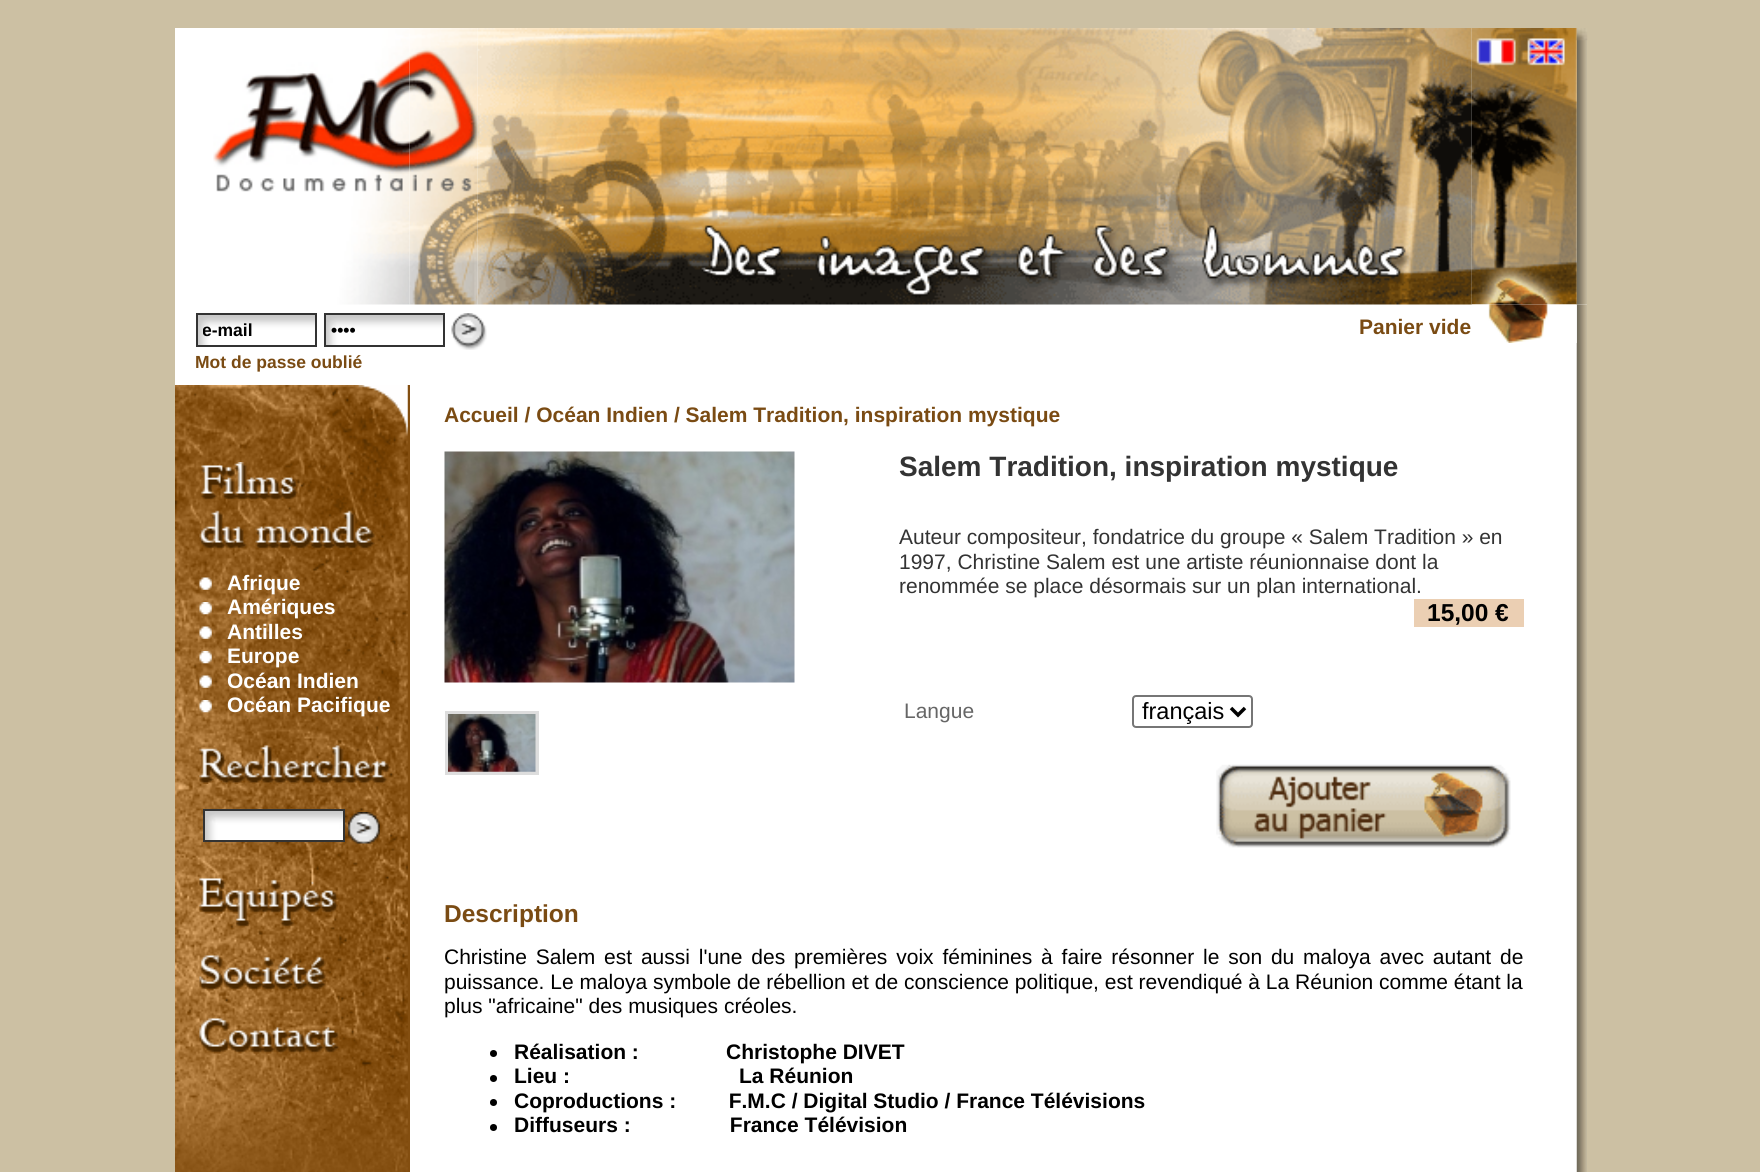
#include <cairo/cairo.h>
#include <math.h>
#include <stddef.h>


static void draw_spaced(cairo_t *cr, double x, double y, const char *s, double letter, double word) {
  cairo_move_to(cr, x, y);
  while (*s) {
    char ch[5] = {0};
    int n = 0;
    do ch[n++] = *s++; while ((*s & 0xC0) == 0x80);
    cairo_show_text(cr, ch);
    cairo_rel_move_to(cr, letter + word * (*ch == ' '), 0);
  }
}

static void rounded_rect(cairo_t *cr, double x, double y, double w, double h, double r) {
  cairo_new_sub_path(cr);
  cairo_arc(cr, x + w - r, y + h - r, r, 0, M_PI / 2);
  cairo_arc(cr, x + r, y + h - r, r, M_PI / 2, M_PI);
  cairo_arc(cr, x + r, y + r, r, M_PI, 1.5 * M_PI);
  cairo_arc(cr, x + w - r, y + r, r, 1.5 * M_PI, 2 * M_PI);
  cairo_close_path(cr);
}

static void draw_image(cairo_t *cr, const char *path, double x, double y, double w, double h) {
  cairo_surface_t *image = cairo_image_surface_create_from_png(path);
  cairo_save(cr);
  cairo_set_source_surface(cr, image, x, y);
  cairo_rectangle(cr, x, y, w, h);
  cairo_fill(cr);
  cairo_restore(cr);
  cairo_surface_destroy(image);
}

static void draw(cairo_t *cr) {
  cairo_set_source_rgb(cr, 204 / 255.0, 192 / 255.0, 163 / 255.0);
  cairo_paint(cr);
  cairo_set_source_rgb(cr, 1, 1, 1);
  cairo_rectangle(cr, 175, 28, 1412, 1144);
  cairo_fill(cr);
  draw_image(cr, "images/1.png", 213, 29, 197, 276);
  draw_image(cr, "images/2.png", 409, 28, 69, 277);
  draw_image(cr, "images/3.png", 477, 28, 995, 277);
  draw_image(cr, "images/5.png", 1576, 28, 11, 277);
  draw_image(cr, "images/11.png", 1576, 304, 11, 81);
  draw_image(cr, "images/4.png", 1471, 28, 106, 277);
  draw_image(cr, "images/6.png", 1576, 28, 12, 13);
  draw_image(cr, "images/7.png", 198, 315, 117, 30);
  cairo_rectangle(cr, 197, 314, 119, 32);
  cairo_set_source_rgb(cr, 51 / 255.0, 51 / 255.0, 51 / 255.0);
  cairo_stroke(cr);
  draw_image(cr, "images/8.png", 326, 315, 117, 30);
  cairo_rectangle(cr, 325, 314, 119, 32);
  cairo_stroke(cr);
  draw_image(cr, "images/9.png", 451, 313, 36, 37);
  draw_image(cr, "images/10.png", 1471, 304, 106, 39);
  cairo_set_source_rgb(cr, 131 / 255.0, 78 / 255.0, 16 / 255.0);
  cairo_rectangle(cr, 407, 385, 3, 787);
  cairo_fill(cr);
  draw_image(cr, "images/12.png", 175, 385, 233, 787);
  draw_image(cr, "images/13.png", 199, 462, 176, 88);
  draw_image(cr, "images/14.png", 199, 577, 13, 13);
  draw_image(cr, "images/15.png", 199, 602, 13, 13);
  draw_image(cr, "images/16.png", 199, 626, 13, 13);
  draw_image(cr, "images/17.png", 199, 651, 13, 13);
  draw_image(cr, "images/18.png", 199, 675, 13, 13);
  draw_image(cr, "images/19.png", 199, 700, 13, 13);
  draw_image(cr, "images/20.png", 199, 745, 192, 39);
  draw_image(cr, "images/21.png", 205, 811, 138, 29);
  cairo_rectangle(cr, 204, 810, 140, 31);
  cairo_set_source_rgb(cr, 51 / 255.0, 51 / 255.0, 51 / 255.0);
  cairo_stroke(cr);
  draw_image(cr, "images/22.png", 348, 812, 32, 32);
  draw_image(cr, "images/23.png", 199, 878, 139, 50);
  draw_image(cr, "images/24.png", 199, 955, 127, 36);
  draw_image(cr, "images/25.png", 199, 1018, 141, 36);
  draw_image(cr, "images/26.png", 444, 451, 351, 232);
  cairo_rectangle(cr, 447, 713, 90, 60);
  cairo_set_source_rgb(cr, 221 / 255.0, 221 / 255.0, 221 / 255.0);
  cairo_set_line_width(cr, 4);
  cairo_stroke(cr);
  draw_image(cr, "images/27.png", 448, 714, 88, 58);
  cairo_set_source_rgb(cr, 235 / 255.0, 207 / 255.0, 179 / 255.0);
  cairo_rectangle(cr, 1414, 599, 110, 28);
  cairo_fill(cr);
  rounded_rect(cr, 1133, 696, 119, 31, 3);
  cairo_set_source_rgb(cr, 118 / 255.0, 118 / 255.0, 118 / 255.0);
  cairo_set_line_width(cr, 2);
  cairo_stroke(cr);
  cairo_new_path(cr);
  cairo_move_to(cr, 1231, 708);
  cairo_line_to(cr, 1238, 715);
  cairo_line_to(cr, 1245, 708);
  cairo_set_source_rgb(cr, 0, 0, 0);
  cairo_set_line_width(cr, 3.5);
  cairo_stroke(cr);
  draw_image(cr, "images/28.png", 1216, 764, 295, 84);
  cairo_arc(cr, 493.5, 1053.5, 3.5, 0, 2 * M_PI);
  cairo_fill(cr);
  cairo_arc(cr, 493.5, 1078.5, 3.5, 0, 2 * M_PI);
  cairo_fill(cr);
  cairo_arc(cr, 493.5, 1102.5, 3.5, 0, 2 * M_PI);
  cairo_fill(cr);
  cairo_arc(cr, 493.5, 1127.5, 3.5, 0, 2 * M_PI);
  cairo_fill(cr);
  draw_image(cr, "images/29.png", 1576, 385, 11, 787);
  cairo_save(cr);
  cairo_rectangle(cr, 203, 320, 107, 20);
  cairo_clip(cr);
  cairo_select_font_face(cr, "Liberation Sans", CAIRO_FONT_SLANT_NORMAL, CAIRO_FONT_WEIGHT_BOLD);
  cairo_set_font_size(cr, 17.5);
  cairo_move_to(cr, 202, 336);
  cairo_show_text(cr, "e-mail");
  cairo_restore(cr);
  cairo_select_font_face(cr, "Liberation Sans", CAIRO_FONT_SLANT_NORMAL, CAIRO_FONT_WEIGHT_BOLD);
  cairo_set_font_size(cr, 17.5);
  cairo_move_to(cr, 331, 336);
  cairo_show_text(cr, "••••");
  cairo_set_source_rgb(cr, 122 / 255.0, 75 / 255.0, 19 / 255.0);
  cairo_move_to(cr, 195, 368);
  cairo_show_text(cr, "Mot de passe oublié");
  cairo_set_font_size(cr, 21);
  cairo_move_to(cr, 1359, 334);
  cairo_show_text(cr, "Panier vide");
  cairo_set_source_rgb(cr, 1, 1, 1);
  cairo_move_to(cr, 227, 590);
  cairo_show_text(cr, "Afrique");
  cairo_move_to(cr, 227, 614);
  cairo_show_text(cr, "Amériques");
  cairo_move_to(cr, 227, 639);
  cairo_show_text(cr, "Antilles");
  cairo_move_to(cr, 227, 663);
  cairo_show_text(cr, "Europe");
  cairo_move_to(cr, 227, 688);
  cairo_show_text(cr, "Océan Indien");
  cairo_move_to(cr, 227, 712);
  cairo_show_text(cr, "Océan Pacifique");
  cairo_set_source_rgb(cr, 122 / 255.0, 75 / 255.0, 19 / 255.0);
  cairo_move_to(cr, 444, 422);
  cairo_show_text(cr, "Accueil / Océan Indien / Salem Tradition, inspiration mystique");
  cairo_set_font_size(cr, 28);
  cairo_set_source_rgb(cr, 51 / 255.0, 51 / 255.0, 51 / 255.0);
  cairo_move_to(cr, 899, 476);
  cairo_show_text(cr, "Salem Tradition, inspiration mystique");
  cairo_select_font_face(cr, "Liberation Sans", CAIRO_FONT_SLANT_NORMAL, CAIRO_FONT_WEIGHT_NORMAL);
  cairo_set_font_size(cr, 21);
  cairo_move_to(cr, 899, 544);
  cairo_show_text(cr, "Auteur compositeur, fondatrice du groupe « Salem Tradition » en");
  cairo_move_to(cr, 899, 569);
  cairo_show_text(cr, "1997, Christine Salem est une artiste réunionnaise dont la");
  cairo_move_to(cr, 899, 593);
  cairo_show_text(cr, "renommée se place désormais sur un plan international.");
  cairo_select_font_face(cr, "Liberation Sans", CAIRO_FONT_SLANT_NORMAL, CAIRO_FONT_WEIGHT_BOLD);
  cairo_set_font_size(cr, 24.5);
  cairo_set_source_rgb(cr, 0, 0, 0);
  cairo_move_to(cr, 1427, 621);
  cairo_show_text(cr, "15,00 €");
  cairo_select_font_face(cr, "Liberation Sans", CAIRO_FONT_SLANT_NORMAL, CAIRO_FONT_WEIGHT_NORMAL);
  cairo_set_font_size(cr, 21);
  cairo_set_source_rgb(cr, 102 / 255.0, 102 / 255.0, 102 / 255.0);
  cairo_move_to(cr, 904, 718);
  cairo_show_text(cr, "Langue");
  cairo_set_font_size(cr, 23.5);
  cairo_set_source_rgb(cr, 0, 0, 0);
  cairo_move_to(cr, 1142, 719);
  cairo_show_text(cr, "français");
  cairo_select_font_face(cr, "Liberation Sans", CAIRO_FONT_SLANT_NORMAL, CAIRO_FONT_WEIGHT_BOLD);
  cairo_set_font_size(cr, 24.5);
  cairo_set_source_rgb(cr, 122 / 255.0, 75 / 255.0, 19 / 255.0);
  cairo_move_to(cr, 444, 922);
  cairo_show_text(cr, "Description");
  cairo_select_font_face(cr, "Liberation Sans", CAIRO_FONT_SLANT_NORMAL, CAIRO_FONT_WEIGHT_NORMAL);
  cairo_set_font_size(cr, 21);
  cairo_set_source_rgb(cr, 0, 0, 0);
  draw_spaced(cr, 444, 964, "Christine Salem est aussi l'une des premières voix féminines à faire résonner le son du maloya avec autant de", 0, 3);
  cairo_move_to(cr, 444, 989);
  cairo_show_text(cr, "puissance. Le maloya symbole de rébellion et de conscience politique, est revendiqué à La Réunion comme étant la");
  cairo_move_to(cr, 444, 1013);
  cairo_show_text(cr, "plus \"africaine\" des musiques créoles.");
  cairo_select_font_face(cr, "Liberation Sans", CAIRO_FONT_SLANT_NORMAL, CAIRO_FONT_WEIGHT_BOLD);
  cairo_move_to(cr, 514, 1059);
  cairo_show_text(cr, "Réalisation :");
  cairo_move_to(cr, 726, 1059);
  cairo_show_text(cr, "Christophe DIVET");
  cairo_move_to(cr, 514, 1083);
  cairo_show_text(cr, "Lieu :");
  cairo_move_to(cr, 739, 1083);
  cairo_show_text(cr, "La Réunion");
  cairo_move_to(cr, 514, 1108);
  cairo_show_text(cr, "Coproductions :         F.M.C / Digital Studio / France Télévisions");
  cairo_move_to(cr, 514, 1132);
  cairo_show_text(cr, "Diffuseurs :                 France Télévision");
}

int main(void) {
  cairo_surface_t *surface = cairo_image_surface_create(CAIRO_FORMAT_RGB24, 1760, 1172);
  cairo_t *cr = cairo_create(surface);
  cairo_font_options_t *options = cairo_font_options_create();
  cairo_font_options_set_hint_metrics(options, CAIRO_HINT_METRICS_OFF);
  cairo_font_options_set_hint_style(options, CAIRO_HINT_STYLE_NONE);
  cairo_set_font_options(cr, options);
  cairo_set_miter_limit(cr, 4);
  draw(cr);
  cairo_surface_write_to_png(surface, "out.png");
  cairo_font_options_destroy(options);
  cairo_destroy(cr);
  cairo_surface_destroy(surface);
  return 0;
}
